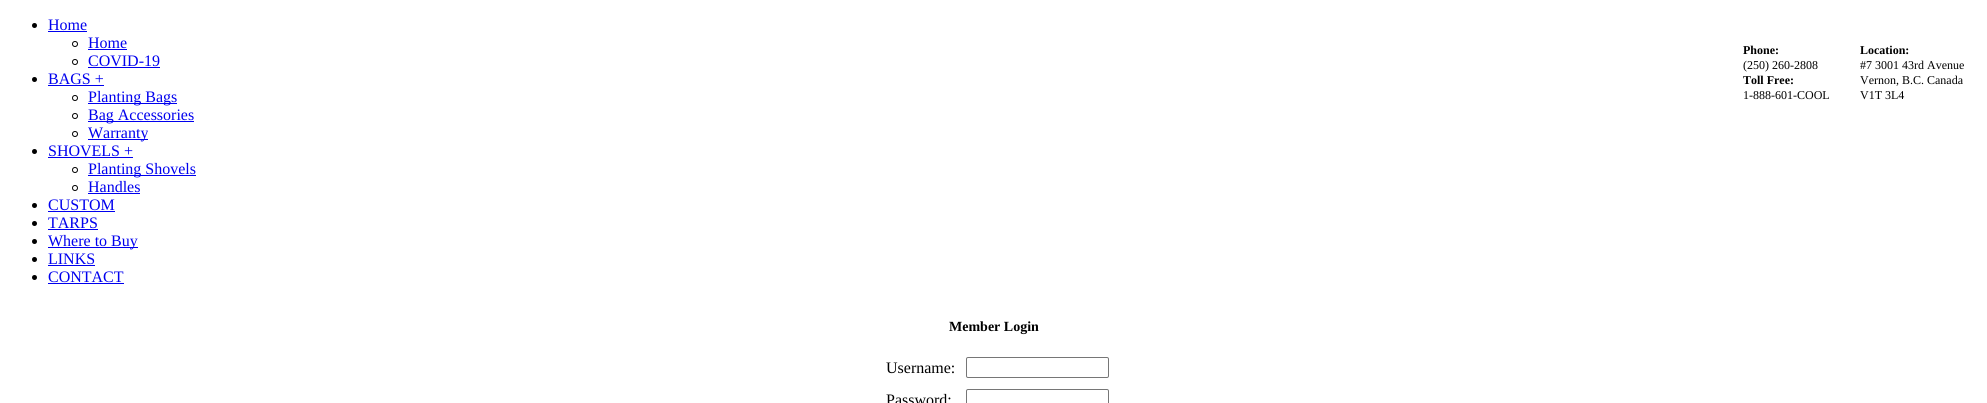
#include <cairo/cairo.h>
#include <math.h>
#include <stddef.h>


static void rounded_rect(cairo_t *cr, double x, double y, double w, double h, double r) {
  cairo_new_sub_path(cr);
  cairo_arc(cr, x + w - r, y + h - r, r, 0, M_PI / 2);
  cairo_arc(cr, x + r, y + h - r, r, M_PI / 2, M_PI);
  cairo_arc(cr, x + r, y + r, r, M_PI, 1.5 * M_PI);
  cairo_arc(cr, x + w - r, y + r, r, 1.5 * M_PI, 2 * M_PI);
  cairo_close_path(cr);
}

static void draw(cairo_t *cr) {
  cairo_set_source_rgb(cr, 1, 1, 1);
  cairo_paint(cr);
  cairo_set_source_rgb(cr, 0, 0, 0);
  cairo_arc(cr, 34.5, 25.5, 2.5, 0, 2 * M_PI);
  cairo_fill(cr);
  cairo_set_source_rgb(cr, 0, 0, 238 / 255.0);
  cairo_rectangle(cr, 48, 31, 39, 1);
  cairo_fill(cr);
  cairo_arc(cr, 75, 44, 2.5, 0, 2 * M_PI);
  cairo_set_source_rgb(cr, 0, 0, 0);
  cairo_set_line_width(cr, 1);
  cairo_stroke(cr);
  cairo_set_source_rgb(cr, 0, 0, 238 / 255.0);
  cairo_rectangle(cr, 88, 49, 39, 1);
  cairo_fill(cr);
  cairo_arc(cr, 75, 62, 2.5, 0, 2 * M_PI);
  cairo_set_source_rgb(cr, 0, 0, 0);
  cairo_stroke(cr);
  cairo_set_source_rgb(cr, 0, 0, 238 / 255.0);
  cairo_rectangle(cr, 88, 67, 72, 1);
  cairo_fill(cr);
  cairo_set_source_rgb(cr, 0, 0, 0);
  cairo_arc(cr, 34.5, 79.5, 2.5, 0, 2 * M_PI);
  cairo_fill(cr);
  cairo_set_source_rgb(cr, 0, 0, 238 / 255.0);
  cairo_rectangle(cr, 48, 85, 56, 1);
  cairo_fill(cr);
  cairo_arc(cr, 75, 98, 2.5, 0, 2 * M_PI);
  cairo_set_source_rgb(cr, 0, 0, 0);
  cairo_stroke(cr);
  cairo_set_source_rgb(cr, 0, 0, 238 / 255.0);
  cairo_rectangle(cr, 88, 103, 89, 1);
  cairo_fill(cr);
  cairo_arc(cr, 75, 116, 2.5, 0, 2 * M_PI);
  cairo_set_source_rgb(cr, 0, 0, 0);
  cairo_stroke(cr);
  cairo_set_source_rgb(cr, 0, 0, 238 / 255.0);
  cairo_rectangle(cr, 88, 121, 106, 1);
  cairo_fill(cr);
  cairo_arc(cr, 75, 134, 2.5, 0, 2 * M_PI);
  cairo_set_source_rgb(cr, 0, 0, 0);
  cairo_stroke(cr);
  cairo_set_source_rgb(cr, 0, 0, 238 / 255.0);
  cairo_rectangle(cr, 88, 139, 60, 1);
  cairo_fill(cr);
  cairo_set_source_rgb(cr, 0, 0, 0);
  cairo_arc(cr, 34.5, 151.5, 2.5, 0, 2 * M_PI);
  cairo_fill(cr);
  cairo_set_source_rgb(cr, 0, 0, 238 / 255.0);
  cairo_rectangle(cr, 48, 157, 85, 1);
  cairo_fill(cr);
  cairo_arc(cr, 75, 170, 2.5, 0, 2 * M_PI);
  cairo_set_source_rgb(cr, 0, 0, 0);
  cairo_stroke(cr);
  cairo_set_source_rgb(cr, 0, 0, 238 / 255.0);
  cairo_rectangle(cr, 88, 175, 108, 1);
  cairo_fill(cr);
  cairo_arc(cr, 75, 188, 2.5, 0, 2 * M_PI);
  cairo_set_source_rgb(cr, 0, 0, 0);
  cairo_stroke(cr);
  cairo_set_source_rgb(cr, 0, 0, 238 / 255.0);
  cairo_rectangle(cr, 88, 193, 52, 1);
  cairo_fill(cr);
  cairo_set_source_rgb(cr, 0, 0, 0);
  cairo_arc(cr, 34.5, 205.5, 2.5, 0, 2 * M_PI);
  cairo_fill(cr);
  cairo_set_source_rgb(cr, 0, 0, 238 / 255.0);
  cairo_rectangle(cr, 48, 211, 67, 1);
  cairo_fill(cr);
  cairo_set_source_rgb(cr, 0, 0, 0);
  cairo_arc(cr, 34.5, 223.5, 2.5, 0, 2 * M_PI);
  cairo_fill(cr);
  cairo_set_source_rgb(cr, 0, 0, 238 / 255.0);
  cairo_rectangle(cr, 48, 229, 50, 1);
  cairo_fill(cr);
  cairo_set_source_rgb(cr, 0, 0, 0);
  cairo_arc(cr, 34.5, 241.5, 2.5, 0, 2 * M_PI);
  cairo_fill(cr);
  cairo_set_source_rgb(cr, 0, 0, 238 / 255.0);
  cairo_rectangle(cr, 48, 247, 90, 1);
  cairo_fill(cr);
  cairo_set_source_rgb(cr, 0, 0, 0);
  cairo_arc(cr, 34.5, 259.5, 2.5, 0, 2 * M_PI);
  cairo_fill(cr);
  cairo_set_source_rgb(cr, 0, 0, 238 / 255.0);
  cairo_rectangle(cr, 48, 265, 47, 1);
  cairo_fill(cr);
  cairo_set_source_rgb(cr, 0, 0, 0);
  cairo_arc(cr, 34.5, 277.5, 2.5, 0, 2 * M_PI);
  cairo_fill(cr);
  cairo_set_source_rgb(cr, 0, 0, 238 / 255.0);
  cairo_rectangle(cr, 48, 283, 76, 1);
  cairo_fill(cr);
  rounded_rect(cr, 966.5, 357.5, 142, 20, 1.5);
  cairo_set_source_rgb(cr, 118 / 255.0, 118 / 255.0, 118 / 255.0);
  cairo_stroke(cr);
  rounded_rect(cr, 966.5, 389.5, 142, 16, 1.5);
  cairo_stroke(cr);
  cairo_select_font_face(cr, "Liberation Serif", CAIRO_FONT_SLANT_NORMAL, CAIRO_FONT_WEIGHT_NORMAL);
  cairo_set_font_size(cr, 16);
  cairo_set_source_rgb(cr, 0, 0, 238 / 255.0);
  cairo_move_to(cr, 48, 30);
  cairo_show_text(cr, "Home");
  cairo_move_to(cr, 88, 48);
  cairo_show_text(cr, "Home");
  cairo_move_to(cr, 88, 66);
  cairo_show_text(cr, "COVID-19");
  cairo_move_to(cr, 48, 84);
  cairo_show_text(cr, "BAGS +");
  cairo_move_to(cr, 88, 102);
  cairo_show_text(cr, "Planting Bags");
  cairo_move_to(cr, 88, 120);
  cairo_show_text(cr, "Bag Accessories");
  cairo_move_to(cr, 88, 138);
  cairo_show_text(cr, "Warranty");
  cairo_move_to(cr, 48, 156);
  cairo_show_text(cr, "SHOVELS +");
  cairo_move_to(cr, 88, 174);
  cairo_show_text(cr, "Planting Shovels");
  cairo_move_to(cr, 88, 192);
  cairo_show_text(cr, "Handles");
  cairo_move_to(cr, 48, 210);
  cairo_show_text(cr, "CUSTOM");
  cairo_move_to(cr, 48, 228);
  cairo_show_text(cr, "TARPS");
  cairo_move_to(cr, 48, 246);
  cairo_show_text(cr, "Where to Buy");
  cairo_move_to(cr, 48, 264);
  cairo_show_text(cr, "LINKS");
  cairo_move_to(cr, 48, 282);
  cairo_show_text(cr, "CONTACT");
  cairo_select_font_face(cr, "Liberation Serif", CAIRO_FONT_SLANT_NORMAL, CAIRO_FONT_WEIGHT_BOLD);
  cairo_set_font_size(cr, 12);
  cairo_set_source_rgb(cr, 0, 0, 0);
  cairo_move_to(cr, 1743, 54);
  cairo_show_text(cr, "Phone:");
  cairo_select_font_face(cr, "Liberation Serif", CAIRO_FONT_SLANT_NORMAL, CAIRO_FONT_WEIGHT_NORMAL);
  cairo_move_to(cr, 1743, 69);
  cairo_show_text(cr, "(250) 260-2808");
  cairo_select_font_face(cr, "Liberation Serif", CAIRO_FONT_SLANT_NORMAL, CAIRO_FONT_WEIGHT_BOLD);
  cairo_move_to(cr, 1743, 84);
  cairo_show_text(cr, "Toll Free:");
  cairo_select_font_face(cr, "Liberation Serif", CAIRO_FONT_SLANT_NORMAL, CAIRO_FONT_WEIGHT_NORMAL);
  cairo_move_to(cr, 1743, 99);
  cairo_show_text(cr, "1-888-601-COOL");
  cairo_select_font_face(cr, "Liberation Serif", CAIRO_FONT_SLANT_NORMAL, CAIRO_FONT_WEIGHT_BOLD);
  cairo_move_to(cr, 1860, 54);
  cairo_show_text(cr, "Location:");
  cairo_select_font_face(cr, "Liberation Serif", CAIRO_FONT_SLANT_NORMAL, CAIRO_FONT_WEIGHT_NORMAL);
  cairo_move_to(cr, 1860, 69);
  cairo_show_text(cr, "#7 3001 43rd Avenue");
  cairo_move_to(cr, 1860, 84);
  cairo_show_text(cr, "Vernon, B.C. Canada");
  cairo_move_to(cr, 1860, 99);
  cairo_show_text(cr, "V1T 3L4");
  cairo_select_font_face(cr, "Liberation Serif", CAIRO_FONT_SLANT_NORMAL, CAIRO_FONT_WEIGHT_BOLD);
  cairo_set_font_size(cr, 14);
  cairo_move_to(cr, 949, 331);
  cairo_show_text(cr, "Member Login");
  cairo_select_font_face(cr, "Liberation Serif", CAIRO_FONT_SLANT_NORMAL, CAIRO_FONT_WEIGHT_NORMAL);
  cairo_set_font_size(cr, 16);
  cairo_move_to(cr, 886, 373);
  cairo_show_text(cr, "Username:");
  cairo_move_to(cr, 886, 405);
  cairo_show_text(cr, "Password:");
}

int main(void) {
  cairo_surface_t *surface = cairo_image_surface_create(CAIRO_FORMAT_RGB24, 1987, 403);
  cairo_t *cr = cairo_create(surface);
  cairo_font_options_t *options = cairo_font_options_create();
  cairo_font_options_set_hint_metrics(options, CAIRO_HINT_METRICS_OFF);
  cairo_font_options_set_hint_style(options, CAIRO_HINT_STYLE_NONE);
  cairo_set_font_options(cr, options);
  cairo_set_miter_limit(cr, 4);
  draw(cr);
  cairo_surface_write_to_png(surface, "out.png");
  cairo_font_options_destroy(options);
  cairo_destroy(cr);
  cairo_surface_destroy(surface);
  return 0;
}
